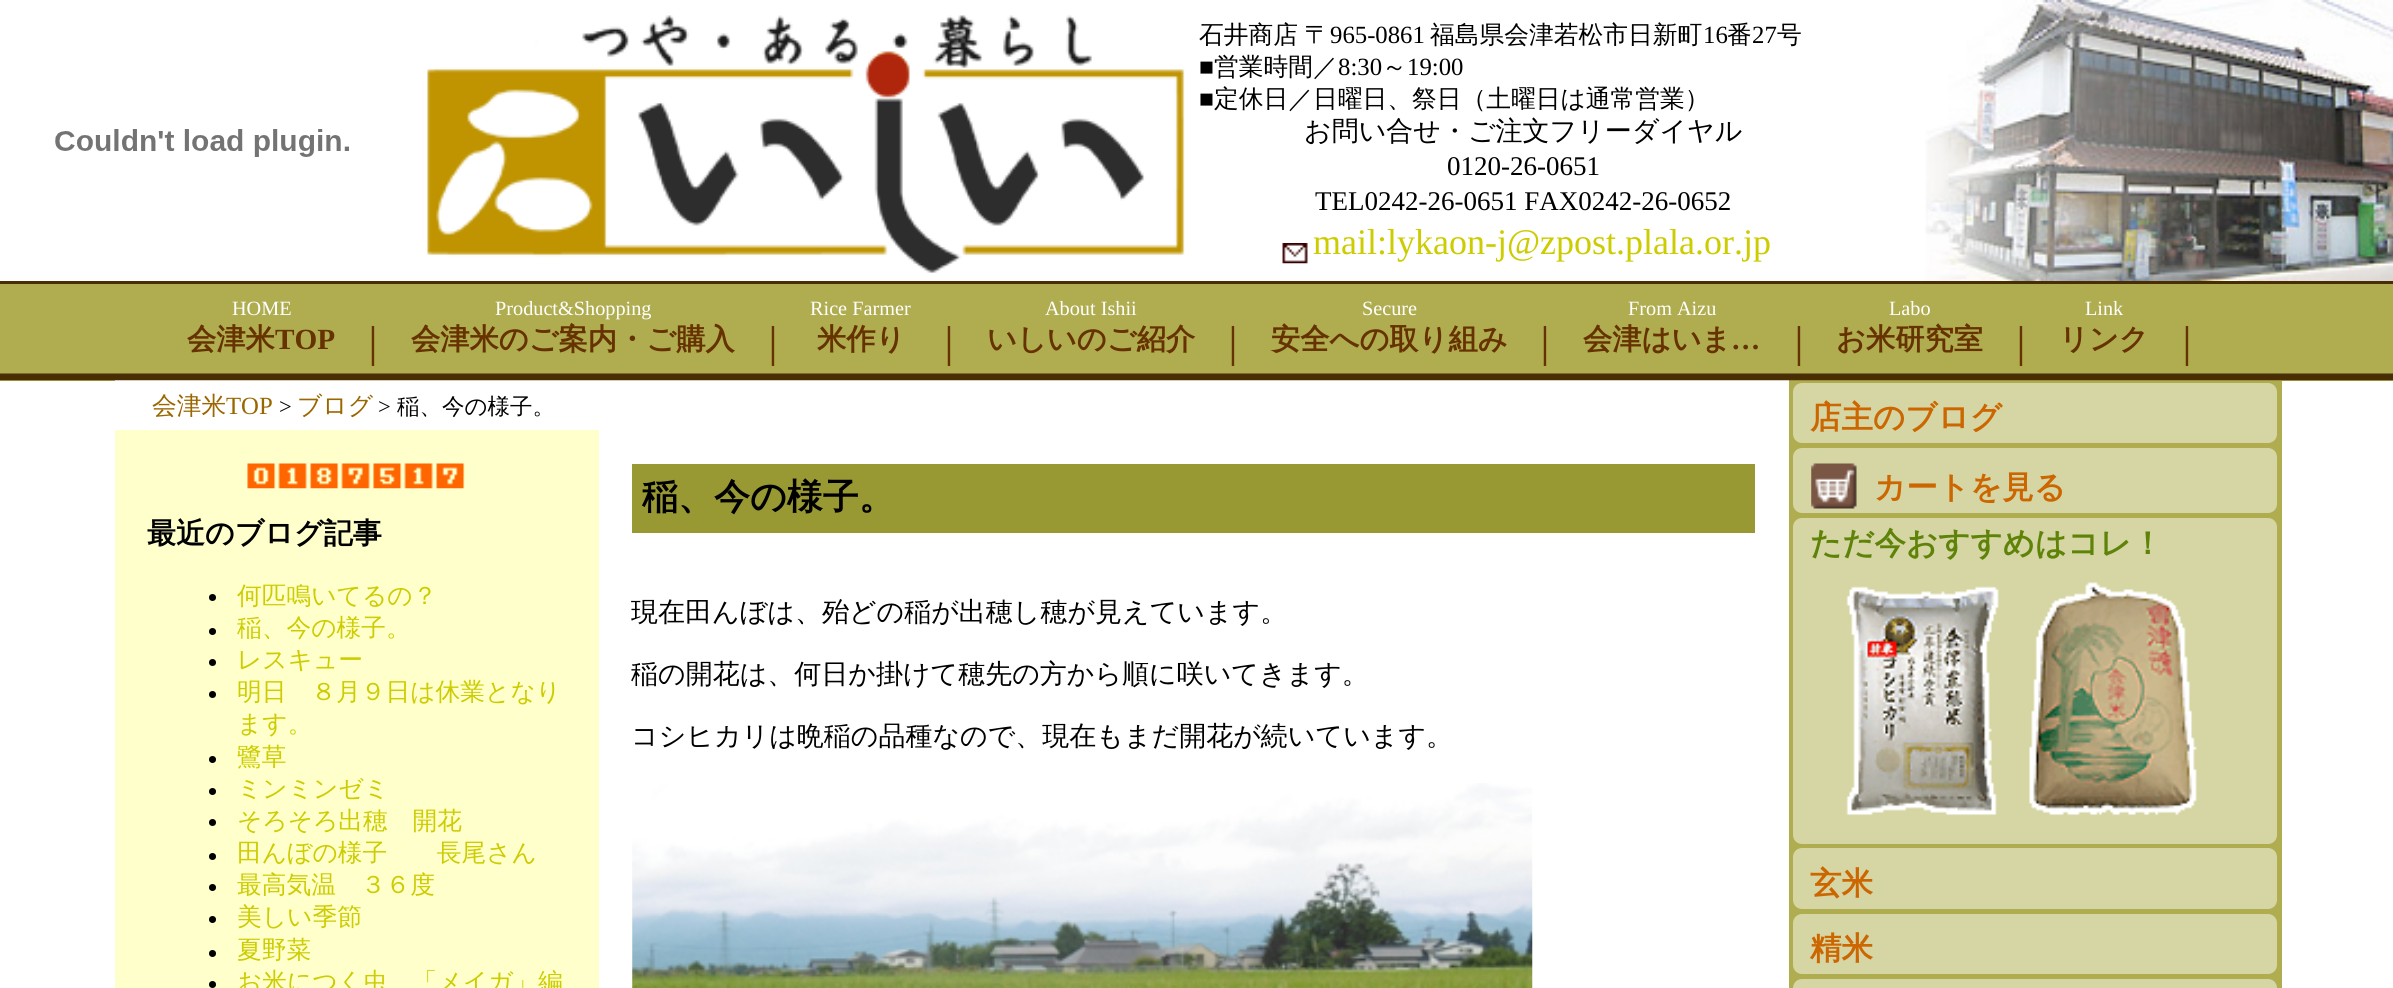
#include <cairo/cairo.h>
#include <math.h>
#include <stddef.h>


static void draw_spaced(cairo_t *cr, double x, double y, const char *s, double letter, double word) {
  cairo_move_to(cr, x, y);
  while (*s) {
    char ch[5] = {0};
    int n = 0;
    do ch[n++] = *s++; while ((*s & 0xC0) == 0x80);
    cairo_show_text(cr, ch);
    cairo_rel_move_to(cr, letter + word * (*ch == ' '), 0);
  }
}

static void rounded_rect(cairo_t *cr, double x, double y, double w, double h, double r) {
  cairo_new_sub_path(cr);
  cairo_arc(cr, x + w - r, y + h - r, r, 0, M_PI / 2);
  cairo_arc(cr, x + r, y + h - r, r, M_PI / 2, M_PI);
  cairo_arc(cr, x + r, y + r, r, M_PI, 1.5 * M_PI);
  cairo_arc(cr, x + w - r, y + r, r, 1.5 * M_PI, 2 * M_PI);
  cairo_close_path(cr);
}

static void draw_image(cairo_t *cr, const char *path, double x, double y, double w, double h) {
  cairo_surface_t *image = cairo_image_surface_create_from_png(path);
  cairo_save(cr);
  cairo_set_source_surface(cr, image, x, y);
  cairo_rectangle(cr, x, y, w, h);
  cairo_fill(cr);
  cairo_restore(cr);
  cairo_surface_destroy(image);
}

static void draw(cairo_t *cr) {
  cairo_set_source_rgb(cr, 1, 1, 1);
  cairo_paint(cr);
  draw_image(cr, "images/1.png", 1925, 0, 468, 281);
  draw_image(cr, "images/2.png", 55, 129, 294, 28);
  draw_image(cr, "images/3.png", 427, 15, 758, 258);
  draw_image(cr, "images/4.png", 1282, 243, 26, 21);
  cairo_set_source_rgb(cr, 73 / 255.0, 46 / 255.0, 3 / 255.0);
  cairo_rectangle(cr, 0, 281, 2393, 3);
  cairo_fill(cr);
  cairo_set_source_rgb(cr, 176 / 255.0, 173 / 255.0, 81 / 255.0);
  cairo_rectangle(cr, 0, 284, 2393, 90);
  cairo_fill(cr);
  cairo_rectangle(cr, 0, 380, 2393, 1);
  cairo_fill(cr);
  cairo_set_source_rgb(cr, 1, 1, 1);
  cairo_rectangle(cr, 115, 380, 1674, 1);
  cairo_fill(cr);
  draw_image(cr, "images/5.png", 0, 373, 2393, 8);
  cairo_set_source_rgb(cr, 176 / 255.0, 173 / 255.0, 81 / 255.0);
  cairo_rectangle(cr, 1789, 381, 493, 607);
  cairo_fill(cr);
  cairo_set_source_rgb(cr, 213 / 255.0, 214 / 255.0, 164 / 255.0);
  rounded_rect(cr, 1793, 383, 484, 60, 9);
  cairo_fill(cr);
  rounded_rect(cr, 1793, 448, 484, 65, 9);
  cairo_fill(cr);
  draw_image(cr, "images/6.png", 1811, 463, 46, 46);
  rounded_rect(cr, 1793, 518, 484, 326, 9);
  cairo_fill(cr);
  draw_image(cr, "images/7.png", 1846, 582, 351, 234);
  rounded_rect(cr, 1793, 848, 484, 61, 9);
  cairo_fill(cr);
  rounded_rect(cr, 1793, 914, 484, 60, 9);
  cairo_fill(cr);
  rounded_rect(cr, 1793, 979, 484, 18, 9);
  cairo_fill(cr);
  cairo_set_source_rgb(cr, 1, 1, 204 / 255.0);
  cairo_rectangle(cr, 115, 430, 484, 558);
  cairo_fill(cr);
  draw_image(cr, "images/8.png", 247, 463, 29, 26);
  draw_image(cr, "images/9.png", 278, 463, 29, 26);
  draw_image(cr, "images/10.png", 310, 463, 29, 26);
  draw_image(cr, "images/11.png", 341, 463, 29, 26);
  draw_image(cr, "images/12.png", 373, 463, 29, 26);
  draw_image(cr, "images/9.png", 404, 463, 29, 26);
  draw_image(cr, "images/13.png", 436, 463, 29, 26);
  cairo_set_source_rgb(cr, 0, 0, 0);
  cairo_arc(cr, 212.5, 597.5, 3.5, 0, 2 * M_PI);
  cairo_fill(cr);
  cairo_arc(cr, 212.5, 631.5, 3.5, 0, 2 * M_PI);
  cairo_fill(cr);
  cairo_arc(cr, 212.5, 662.5, 3.5, 0, 2 * M_PI);
  cairo_fill(cr);
  cairo_arc(cr, 212.5, 694.5, 3.5, 0, 2 * M_PI);
  cairo_fill(cr);
  cairo_arc(cr, 212.5, 759.5, 3.5, 0, 2 * M_PI);
  cairo_fill(cr);
  cairo_arc(cr, 212.5, 791.5, 3.5, 0, 2 * M_PI);
  cairo_fill(cr);
  cairo_arc(cr, 212.5, 822.5, 3.5, 0, 2 * M_PI);
  cairo_fill(cr);
  cairo_arc(cr, 212.5, 856.5, 3.5, 0, 2 * M_PI);
  cairo_fill(cr);
  cairo_arc(cr, 212.5, 887.5, 3.5, 0, 2 * M_PI);
  cairo_fill(cr);
  cairo_arc(cr, 212.5, 919.5, 3.5, 0, 2 * M_PI);
  cairo_fill(cr);
  cairo_arc(cr, 212.5, 953.5, 3.5, 0, 2 * M_PI);
  cairo_fill(cr);
  cairo_arc(cr, 212.5, 984.5, 3.5, 0, 2 * M_PI);
  cairo_fill(cr);
  cairo_set_source_rgb(cr, 153 / 255.0, 153 / 255.0, 51 / 255.0);
  cairo_rectangle(cr, 632, 464, 1123, 69);
  cairo_fill(cr);
  draw_image(cr, "images/14.png", 632, 783, 901, 205);
  cairo_select_font_face(cr, "WenQuanYi Zen Hei Medium", CAIRO_FONT_SLANT_NORMAL, CAIRO_FONT_WEIGHT_NORMAL);
  cairo_set_font_size(cr, 24.75);
  cairo_set_source_rgb(cr, 0, 0, 0);
  draw_spaced(cr, 1199, 43, "石井商店 〒", 0, -1);
  cairo_select_font_face(cr, "Liberation Serif", CAIRO_FONT_SLANT_NORMAL, CAIRO_FONT_WEIGHT_NORMAL);
  cairo_move_to(cr, 1330, 43);
  cairo_show_text(cr, "965-0861");
  cairo_select_font_face(cr, "WenQuanYi Zen Hei Medium", CAIRO_FONT_SLANT_NORMAL, CAIRO_FONT_WEIGHT_NORMAL);
  cairo_move_to(cr, 1430, 43);
  cairo_show_text(cr, "福島県会津若松市日新町");
  cairo_select_font_face(cr, "Liberation Serif", CAIRO_FONT_SLANT_NORMAL, CAIRO_FONT_WEIGHT_NORMAL);
  cairo_move_to(cr, 1703, 43);
  cairo_show_text(cr, "16");
  cairo_select_font_face(cr, "WenQuanYi Zen Hei Medium", CAIRO_FONT_SLANT_NORMAL, CAIRO_FONT_WEIGHT_NORMAL);
  cairo_move_to(cr, 1727, 43);
  cairo_show_text(cr, "番");
  cairo_select_font_face(cr, "Liberation Serif", CAIRO_FONT_SLANT_NORMAL, CAIRO_FONT_WEIGHT_NORMAL);
  cairo_move_to(cr, 1752, 43);
  cairo_show_text(cr, "27");
  cairo_select_font_face(cr, "WenQuanYi Zen Hei Medium", CAIRO_FONT_SLANT_NORMAL, CAIRO_FONT_WEIGHT_NORMAL);
  cairo_move_to(cr, 1777, 43);
  cairo_show_text(cr, "号");
  cairo_select_font_face(cr, "Liberation Serif", CAIRO_FONT_SLANT_NORMAL, CAIRO_FONT_WEIGHT_NORMAL);
  cairo_move_to(cr, 1199, 75);
  cairo_show_text(cr, "■");
  cairo_select_font_face(cr, "WenQuanYi Zen Hei Medium", CAIRO_FONT_SLANT_NORMAL, CAIRO_FONT_WEIGHT_NORMAL);
  cairo_move_to(cr, 1214, 75);
  cairo_show_text(cr, "営業時間／");
  cairo_select_font_face(cr, "Liberation Serif", CAIRO_FONT_SLANT_NORMAL, CAIRO_FONT_WEIGHT_NORMAL);
  cairo_move_to(cr, 1338, 75);
  cairo_show_text(cr, "8:30");
  cairo_select_font_face(cr, "WenQuanYi Zen Hei Medium", CAIRO_FONT_SLANT_NORMAL, CAIRO_FONT_WEIGHT_NORMAL);
  cairo_move_to(cr, 1382, 75);
  cairo_show_text(cr, "～");
  cairo_select_font_face(cr, "Liberation Serif", CAIRO_FONT_SLANT_NORMAL, CAIRO_FONT_WEIGHT_NORMAL);
  cairo_move_to(cr, 1407, 75);
  cairo_show_text(cr, "19:00");
  cairo_move_to(cr, 1199, 107);
  cairo_show_text(cr, "■");
  cairo_select_font_face(cr, "WenQuanYi Zen Hei Medium", CAIRO_FONT_SLANT_NORMAL, CAIRO_FONT_WEIGHT_NORMAL);
  cairo_move_to(cr, 1214, 107);
  cairo_show_text(cr, "定休日／日曜日、祭日（土曜日は通常営業）");
  cairo_set_font_size(cr, 27);
  cairo_move_to(cr, 1304, 140);
  cairo_show_text(cr, "お問い合せ・ご注文フリーダイヤル");
  cairo_select_font_face(cr, "Liberation Serif", CAIRO_FONT_SLANT_NORMAL, CAIRO_FONT_WEIGHT_NORMAL);
  cairo_move_to(cr, 1447, 175);
  cairo_show_text(cr, "0120-26-0651");
  cairo_move_to(cr, 1315, 210);
  cairo_show_text(cr, "TEL0242-26-0651 FAX0242-26-0652");
  cairo_set_font_size(cr, 36);
  cairo_set_source_rgb(cr, 204 / 255.0, 204 / 255.0, 0);
  cairo_move_to(cr, 1313, 254);
  cairo_show_text(cr, "mail:lykaon-j@zpost.plala.or.jp");
  cairo_set_font_size(cr, 20.25);
  cairo_set_source_rgb(cr, 1, 1, 1);
  cairo_move_to(cr, 232, 315);
  cairo_show_text(cr, "HOME");
  cairo_select_font_face(cr, "WenQuanYi Zen Hei", CAIRO_FONT_SLANT_NORMAL, CAIRO_FONT_WEIGHT_BOLD);
  cairo_set_font_size(cr, 29.25);
  cairo_set_source_rgb(cr, 102 / 255.0, 51 / 255.0, 0);
  cairo_move_to(cr, 187, 349);
  cairo_show_text(cr, "会津米");
  cairo_select_font_face(cr, "Liberation Serif", CAIRO_FONT_SLANT_NORMAL, CAIRO_FONT_WEIGHT_BOLD);
  cairo_move_to(cr, 275, 349);
  cairo_show_text(cr, "TOP");
  cairo_select_font_face(cr, "WenQuanYi Zen Hei Medium", CAIRO_FONT_SLANT_NORMAL, CAIRO_FONT_WEIGHT_NORMAL);
  cairo_set_font_size(cr, 40);
  cairo_move_to(cr, 353, 356);
  cairo_show_text(cr, "｜");
  cairo_select_font_face(cr, "Liberation Serif", CAIRO_FONT_SLANT_NORMAL, CAIRO_FONT_WEIGHT_NORMAL);
  cairo_set_font_size(cr, 20.25);
  cairo_set_source_rgb(cr, 1, 1, 1);
  cairo_move_to(cr, 495, 315);
  cairo_show_text(cr, "Product&Shopping");
  cairo_select_font_face(cr, "WenQuanYi Zen Hei", CAIRO_FONT_SLANT_NORMAL, CAIRO_FONT_WEIGHT_BOLD);
  cairo_set_font_size(cr, 29.25);
  cairo_set_source_rgb(cr, 102 / 255.0, 51 / 255.0, 0);
  cairo_move_to(cr, 411, 349);
  cairo_show_text(cr, "会津米のご案内・ご購入");
  cairo_select_font_face(cr, "WenQuanYi Zen Hei Medium", CAIRO_FONT_SLANT_NORMAL, CAIRO_FONT_WEIGHT_NORMAL);
  cairo_set_font_size(cr, 40);
  cairo_move_to(cr, 753, 356);
  cairo_show_text(cr, "｜");
  cairo_select_font_face(cr, "Liberation Serif", CAIRO_FONT_SLANT_NORMAL, CAIRO_FONT_WEIGHT_NORMAL);
  cairo_set_font_size(cr, 20.25);
  cairo_set_source_rgb(cr, 1, 1, 1);
  cairo_move_to(cr, 810, 315);
  cairo_show_text(cr, "Rice Farmer");
  cairo_select_font_face(cr, "WenQuanYi Zen Hei", CAIRO_FONT_SLANT_NORMAL, CAIRO_FONT_WEIGHT_BOLD);
  cairo_set_font_size(cr, 29.25);
  cairo_set_source_rgb(cr, 102 / 255.0, 51 / 255.0, 0);
  cairo_move_to(cr, 817, 349);
  cairo_show_text(cr, "米作り");
  cairo_select_font_face(cr, "WenQuanYi Zen Hei Medium", CAIRO_FONT_SLANT_NORMAL, CAIRO_FONT_WEIGHT_NORMAL);
  cairo_set_font_size(cr, 40);
  cairo_move_to(cr, 929, 356);
  cairo_show_text(cr, "｜");
  cairo_select_font_face(cr, "Liberation Serif", CAIRO_FONT_SLANT_NORMAL, CAIRO_FONT_WEIGHT_NORMAL);
  cairo_set_font_size(cr, 20.25);
  cairo_set_source_rgb(cr, 1, 1, 1);
  cairo_move_to(cr, 1045, 315);
  cairo_show_text(cr, "About Ishii");
  cairo_select_font_face(cr, "WenQuanYi Zen Hei", CAIRO_FONT_SLANT_NORMAL, CAIRO_FONT_WEIGHT_BOLD);
  cairo_set_font_size(cr, 29.25);
  cairo_set_source_rgb(cr, 102 / 255.0, 51 / 255.0, 0);
  cairo_move_to(cr, 987, 349);
  cairo_show_text(cr, "いしいのご紹介");
  cairo_select_font_face(cr, "WenQuanYi Zen Hei Medium", CAIRO_FONT_SLANT_NORMAL, CAIRO_FONT_WEIGHT_NORMAL);
  cairo_set_font_size(cr, 40);
  cairo_move_to(cr, 1213, 356);
  cairo_show_text(cr, "｜");
  cairo_select_font_face(cr, "Liberation Serif", CAIRO_FONT_SLANT_NORMAL, CAIRO_FONT_WEIGHT_NORMAL);
  cairo_set_font_size(cr, 20.25);
  cairo_set_source_rgb(cr, 1, 1, 1);
  cairo_move_to(cr, 1362, 315);
  cairo_show_text(cr, "Secure");
  cairo_select_font_face(cr, "WenQuanYi Zen Hei", CAIRO_FONT_SLANT_NORMAL, CAIRO_FONT_WEIGHT_BOLD);
  cairo_set_font_size(cr, 29.25);
  cairo_set_source_rgb(cr, 102 / 255.0, 51 / 255.0, 0);
  cairo_move_to(cr, 1271, 349);
  cairo_show_text(cr, "安全への取り組み");
  cairo_select_font_face(cr, "WenQuanYi Zen Hei Medium", CAIRO_FONT_SLANT_NORMAL, CAIRO_FONT_WEIGHT_NORMAL);
  cairo_set_font_size(cr, 40);
  cairo_move_to(cr, 1525, 356);
  cairo_show_text(cr, "｜");
  cairo_select_font_face(cr, "Liberation Serif", CAIRO_FONT_SLANT_NORMAL, CAIRO_FONT_WEIGHT_NORMAL);
  cairo_set_font_size(cr, 20.25);
  cairo_set_source_rgb(cr, 1, 1, 1);
  cairo_move_to(cr, 1628, 315);
  cairo_show_text(cr, "From Aizu");
  cairo_select_font_face(cr, "WenQuanYi Zen Hei", CAIRO_FONT_SLANT_NORMAL, CAIRO_FONT_WEIGHT_BOLD);
  cairo_set_font_size(cr, 29.25);
  cairo_set_source_rgb(cr, 102 / 255.0, 51 / 255.0, 0);
  cairo_move_to(cr, 1583, 349);
  cairo_show_text(cr, "会津はいま");
  cairo_select_font_face(cr, "Liberation Serif", CAIRO_FONT_SLANT_NORMAL, CAIRO_FONT_WEIGHT_BOLD);
  cairo_move_to(cr, 1731, 349);
  cairo_show_text(cr, "…");
  cairo_select_font_face(cr, "WenQuanYi Zen Hei Medium", CAIRO_FONT_SLANT_NORMAL, CAIRO_FONT_WEIGHT_NORMAL);
  cairo_set_font_size(cr, 40);
  cairo_move_to(cr, 1779, 356);
  cairo_show_text(cr, "｜");
  cairo_select_font_face(cr, "Liberation Serif", CAIRO_FONT_SLANT_NORMAL, CAIRO_FONT_WEIGHT_NORMAL);
  cairo_set_font_size(cr, 20.25);
  cairo_set_source_rgb(cr, 1, 1, 1);
  cairo_move_to(cr, 1889, 315);
  cairo_show_text(cr, "Labo");
  cairo_select_font_face(cr, "WenQuanYi Zen Hei", CAIRO_FONT_SLANT_NORMAL, CAIRO_FONT_WEIGHT_BOLD);
  cairo_set_font_size(cr, 29.25);
  cairo_set_source_rgb(cr, 102 / 255.0, 51 / 255.0, 0);
  cairo_move_to(cr, 1836, 349);
  cairo_show_text(cr, "お米研究室");
  cairo_select_font_face(cr, "WenQuanYi Zen Hei Medium", CAIRO_FONT_SLANT_NORMAL, CAIRO_FONT_WEIGHT_NORMAL);
  cairo_set_font_size(cr, 40);
  cairo_move_to(cr, 2001, 356);
  cairo_show_text(cr, "｜");
  cairo_select_font_face(cr, "Liberation Serif", CAIRO_FONT_SLANT_NORMAL, CAIRO_FONT_WEIGHT_NORMAL);
  cairo_set_font_size(cr, 20.25);
  cairo_set_source_rgb(cr, 1, 1, 1);
  cairo_move_to(cr, 2085, 315);
  cairo_show_text(cr, "Link");
  cairo_select_font_face(cr, "WenQuanYi Zen Hei", CAIRO_FONT_SLANT_NORMAL, CAIRO_FONT_WEIGHT_BOLD);
  cairo_set_font_size(cr, 29.25);
  cairo_set_source_rgb(cr, 102 / 255.0, 51 / 255.0, 0);
  cairo_move_to(cr, 2059, 349);
  cairo_show_text(cr, "リンク");
  cairo_select_font_face(cr, "WenQuanYi Zen Hei Medium", CAIRO_FONT_SLANT_NORMAL, CAIRO_FONT_WEIGHT_NORMAL);
  cairo_set_font_size(cr, 40);
  cairo_move_to(cr, 2167, 356);
  cairo_show_text(cr, "｜");
  cairo_set_font_size(cr, 24.75);
  cairo_set_source_rgb(cr, 153 / 255.0, 102 / 255.0, 0);
  cairo_move_to(cr, 152, 414);
  cairo_show_text(cr, "会津米");
  cairo_select_font_face(cr, "Liberation Serif", CAIRO_FONT_SLANT_NORMAL, CAIRO_FONT_WEIGHT_NORMAL);
  cairo_move_to(cr, 226, 414);
  cairo_show_text(cr, "TOP");
  cairo_set_font_size(cr, 22.5);
  cairo_set_source_rgb(cr, 0, 0, 0);
  cairo_move_to(cr, 279, 414);
  cairo_show_text(cr, ">");
  cairo_select_font_face(cr, "WenQuanYi Zen Hei Medium", CAIRO_FONT_SLANT_NORMAL, CAIRO_FONT_WEIGHT_NORMAL);
  cairo_set_font_size(cr, 24.75);
  cairo_set_source_rgb(cr, 153 / 255.0, 102 / 255.0, 0);
  cairo_move_to(cr, 297, 414);
  cairo_show_text(cr, "ブログ");
  cairo_select_font_face(cr, "Liberation Serif", CAIRO_FONT_SLANT_NORMAL, CAIRO_FONT_WEIGHT_NORMAL);
  cairo_set_font_size(cr, 22.5);
  cairo_set_source_rgb(cr, 0, 0, 0);
  cairo_move_to(cr, 378, 414);
  cairo_show_text(cr, ">");
  cairo_select_font_face(cr, "WenQuanYi Zen Hei Medium", CAIRO_FONT_SLANT_NORMAL, CAIRO_FONT_WEIGHT_NORMAL);
  cairo_move_to(cr, 397, 414);
  cairo_show_text(cr, "稲、今の様子。");
  cairo_select_font_face(cr, "WenQuanYi Zen Hei", CAIRO_FONT_SLANT_NORMAL, CAIRO_FONT_WEIGHT_BOLD);
  cairo_set_font_size(cr, 31.5);
  cairo_set_source_rgb(cr, 204 / 255.0, 102 / 255.0, 0);
  cairo_move_to(cr, 1810, 428);
  cairo_show_text(cr, "店主のブログ");
  cairo_move_to(cr, 1874, 498);
  cairo_show_text(cr, "カートを見る");
  cairo_set_source_rgb(cr, 95 / 255.0, 131 / 255.0, 8 / 255.0);
  cairo_move_to(cr, 1810, 554);
  cairo_show_text(cr, "ただ今おすすめはコレ！");
  cairo_set_source_rgb(cr, 204 / 255.0, 102 / 255.0, 0);
  cairo_move_to(cr, 1810, 894);
  cairo_show_text(cr, "玄米");
  cairo_move_to(cr, 1810, 959);
  cairo_show_text(cr, "精米");
  cairo_set_font_size(cr, 29);
  cairo_set_source_rgb(cr, 0, 0, 0);
  cairo_move_to(cr, 147, 543);
  cairo_show_text(cr, "最近のブログ記事");
  cairo_select_font_face(cr, "WenQuanYi Zen Hei Medium", CAIRO_FONT_SLANT_NORMAL, CAIRO_FONT_WEIGHT_NORMAL);
  cairo_set_font_size(cr, 24.75);
  cairo_set_source_rgb(cr, 204 / 255.0, 204 / 255.0, 0);
  cairo_move_to(cr, 237, 604);
  cairo_show_text(cr, "何匹鳴いてるの？");
  cairo_move_to(cr, 237, 636);
  cairo_show_text(cr, "稲、今の様子。");
  cairo_move_to(cr, 237, 668);
  cairo_show_text(cr, "レスキュー");
  cairo_move_to(cr, 237, 700);
  cairo_show_text(cr, "明日　８月９日は休業となり");
  cairo_move_to(cr, 237, 732);
  cairo_show_text(cr, "ます。");
  cairo_move_to(cr, 237, 765);
  cairo_show_text(cr, "鷺草");
  cairo_move_to(cr, 237, 797);
  cairo_show_text(cr, "ミンミンゼミ");
  cairo_move_to(cr, 237, 829);
  cairo_show_text(cr, "そろそろ出穂　開花");
  cairo_move_to(cr, 237, 861);
  cairo_show_text(cr, "田んぼの様子　　長尾さん");
  cairo_move_to(cr, 237, 893);
  cairo_show_text(cr, "最高気温　３６度");
  cairo_move_to(cr, 237, 925);
  cairo_show_text(cr, "美しい季節");
  cairo_move_to(cr, 237, 958);
  cairo_show_text(cr, "夏野菜");
  cairo_move_to(cr, 237, 990);
  cairo_show_text(cr, "お米につく虫　「メイガ」編");
  cairo_select_font_face(cr, "WenQuanYi Zen Hei", CAIRO_FONT_SLANT_NORMAL, CAIRO_FONT_WEIGHT_BOLD);
  cairo_set_font_size(cr, 36);
  cairo_set_source_rgb(cr, 0, 0, 0);
  cairo_move_to(cr, 642, 509);
  cairo_show_text(cr, "稲、今の様子。");
  cairo_select_font_face(cr, "WenQuanYi Zen Hei Medium", CAIRO_FONT_SLANT_NORMAL, CAIRO_FONT_WEIGHT_NORMAL);
  cairo_set_font_size(cr, 27);
  cairo_move_to(cr, 631, 621);
  cairo_show_text(cr, "現在田んぼは、殆どの稲が出穂し穂が見えています。");
  cairo_move_to(cr, 631, 683);
  cairo_show_text(cr, "稲の開花は、何日か掛けて穂先の方から順に咲いてきます。");
  cairo_move_to(cr, 631, 745);
  cairo_show_text(cr, "コシヒカリは晩稲の品種なので、現在もまだ開花が続いています。");
}

int main(void) {
  cairo_surface_t *surface = cairo_image_surface_create(CAIRO_FORMAT_RGB24, 2393, 988);
  cairo_t *cr = cairo_create(surface);
  cairo_font_options_t *options = cairo_font_options_create();
  cairo_font_options_set_hint_metrics(options, CAIRO_HINT_METRICS_OFF);
  cairo_font_options_set_hint_style(options, CAIRO_HINT_STYLE_NONE);
  cairo_set_font_options(cr, options);
  cairo_set_miter_limit(cr, 4);
  draw(cr);
  cairo_surface_write_to_png(surface, "out.png");
  cairo_font_options_destroy(options);
  cairo_destroy(cr);
  cairo_surface_destroy(surface);
  return 0;
}
